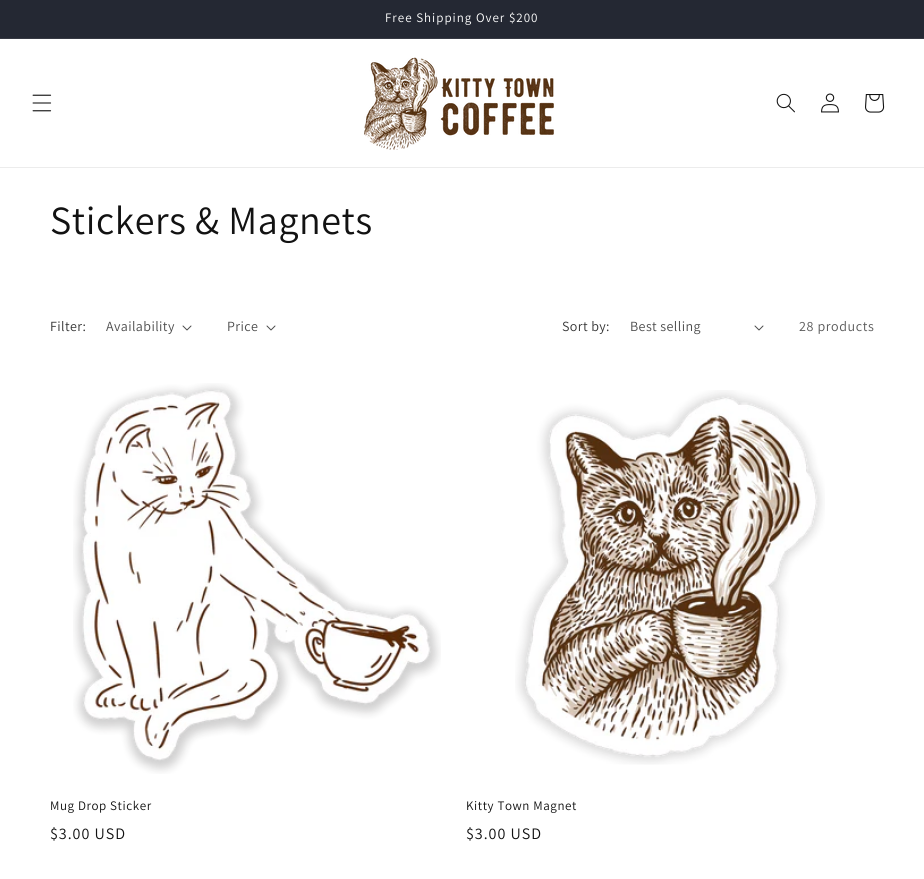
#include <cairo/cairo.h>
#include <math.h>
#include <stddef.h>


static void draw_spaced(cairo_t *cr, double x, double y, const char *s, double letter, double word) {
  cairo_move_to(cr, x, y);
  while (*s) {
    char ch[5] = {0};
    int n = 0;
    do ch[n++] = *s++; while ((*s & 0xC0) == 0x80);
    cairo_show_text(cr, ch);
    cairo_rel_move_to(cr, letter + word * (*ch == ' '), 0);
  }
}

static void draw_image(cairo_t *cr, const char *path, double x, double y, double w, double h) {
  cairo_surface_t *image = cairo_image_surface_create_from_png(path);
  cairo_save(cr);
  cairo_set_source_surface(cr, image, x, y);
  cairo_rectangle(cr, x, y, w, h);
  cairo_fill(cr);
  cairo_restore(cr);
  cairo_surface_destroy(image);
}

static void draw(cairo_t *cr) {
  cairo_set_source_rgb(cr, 1, 1, 1);
  cairo_paint(cr);
  cairo_set_source_rgb(cr, 36 / 255.0, 40 / 255.0, 51 / 255.0);
  cairo_rectangle(cr, 0, 0, 924, 38);
  cairo_fill(cr);
  cairo_set_source_rgb(cr, 54 / 255.0, 57 / 255.0, 67 / 255.0);
  cairo_rectangle(cr, 0, 38, 924, 1);
  cairo_fill(cr);
  cairo_set_source_rgb(cr, 236 / 255.0, 236 / 255.0, 236 / 255.0);
  cairo_rectangle(cr, 0, 167, 924, 1);
  cairo_fill(cr);
  draw_image(cr, "images/1.png", 32, 94, 20, 18);
  draw_image(cr, "images/2.png", 364, 57, 190, 93);
  draw_image(cr, "images/3.png", 776, 93, 19, 20);
  draw_image(cr, "images/4.png", 821, 93, 18, 20);
  draw_image(cr, "images/5.png", 865, 94, 20, 19);
  draw_image(cr, "images/6.png", 182, 325, 10, 6);
  draw_image(cr, "images/6.png", 266, 325, 10, 6);
  draw_image(cr, "images/6.png", 754, 325, 10, 6);
  draw_image(cr, "images/7.png", 73, 383, 368, 391);
  draw_image(cr, "images/8.png", 515, 390, 310, 375);
  cairo_select_font_face(cr, "Assistant", CAIRO_FONT_SLANT_NORMAL, CAIRO_FONT_WEIGHT_NORMAL);
  cairo_set_font_size(cr, 13);
  cairo_set_source_rgb(cr, 1, 1, 1);
  draw_spaced(cr, 385, 22, "Free Shipping Over $200", 1, 0);
  cairo_set_font_size(cr, 40);
  cairo_set_source_rgb(cr, 18 / 255.0, 18 / 255.0, 18 / 255.0);
  draw_spaced(cr, 50, 234, "Stickers & Magnets", 0.6, 0);
  cairo_set_font_size(cr, 14);
  cairo_set_source_rgb(cr, 54 / 255.0, 54 / 255.0, 54 / 255.0);
  draw_spaced(cr, 50, 331, "Filter:", 0.4, 0);
  cairo_set_source_rgb(cr, 77 / 255.0, 77 / 255.0, 77 / 255.0);
  draw_spaced(cr, 106, 331, "Availability", 0.4, 0);
  draw_spaced(cr, 227, 331, "Price", 0.4, 0);
  cairo_set_source_rgb(cr, 54 / 255.0, 54 / 255.0, 54 / 255.0);
  draw_spaced(cr, 562, 331, "Sort by:", 0.4, 0);
  cairo_set_source_rgb(cr, 77 / 255.0, 77 / 255.0, 77 / 255.0);
  draw_spaced(cr, 630, 331, "Best selling", 0.4, 0);
  cairo_set_source_rgb(cr, 89 / 255.0, 89 / 255.0, 89 / 255.0);
  draw_spaced(cr, 799, 331, "28 products", 0.6, 0);
  cairo_set_font_size(cr, 13);
  cairo_set_source_rgb(cr, 18 / 255.0, 18 / 255.0, 18 / 255.0);
  draw_spaced(cr, 50, 810, "Mug Drop Sticker", 0.6, 0);
  cairo_set_font_size(cr, 16);
  draw_spaced(cr, 50, 839, "$3.00 USD", 1, 0);
  cairo_set_font_size(cr, 13);
  draw_spaced(cr, 466, 810, "Kitty Town Magnet", 0.6, 0);
  cairo_set_font_size(cr, 16);
  draw_spaced(cr, 466, 839, "$3.00 USD", 1, 0);
}

int main(void) {
  cairo_surface_t *surface = cairo_image_surface_create(CAIRO_FORMAT_RGB24, 924, 879);
  cairo_t *cr = cairo_create(surface);
  cairo_font_options_t *options = cairo_font_options_create();
  cairo_font_options_set_hint_metrics(options, CAIRO_HINT_METRICS_OFF);
  cairo_font_options_set_hint_style(options, CAIRO_HINT_STYLE_NONE);
  cairo_set_font_options(cr, options);
  cairo_set_miter_limit(cr, 4);
  draw(cr);
  cairo_surface_write_to_png(surface, "out.png");
  cairo_font_options_destroy(options);
  cairo_destroy(cr);
  cairo_surface_destroy(surface);
  return 0;
}
